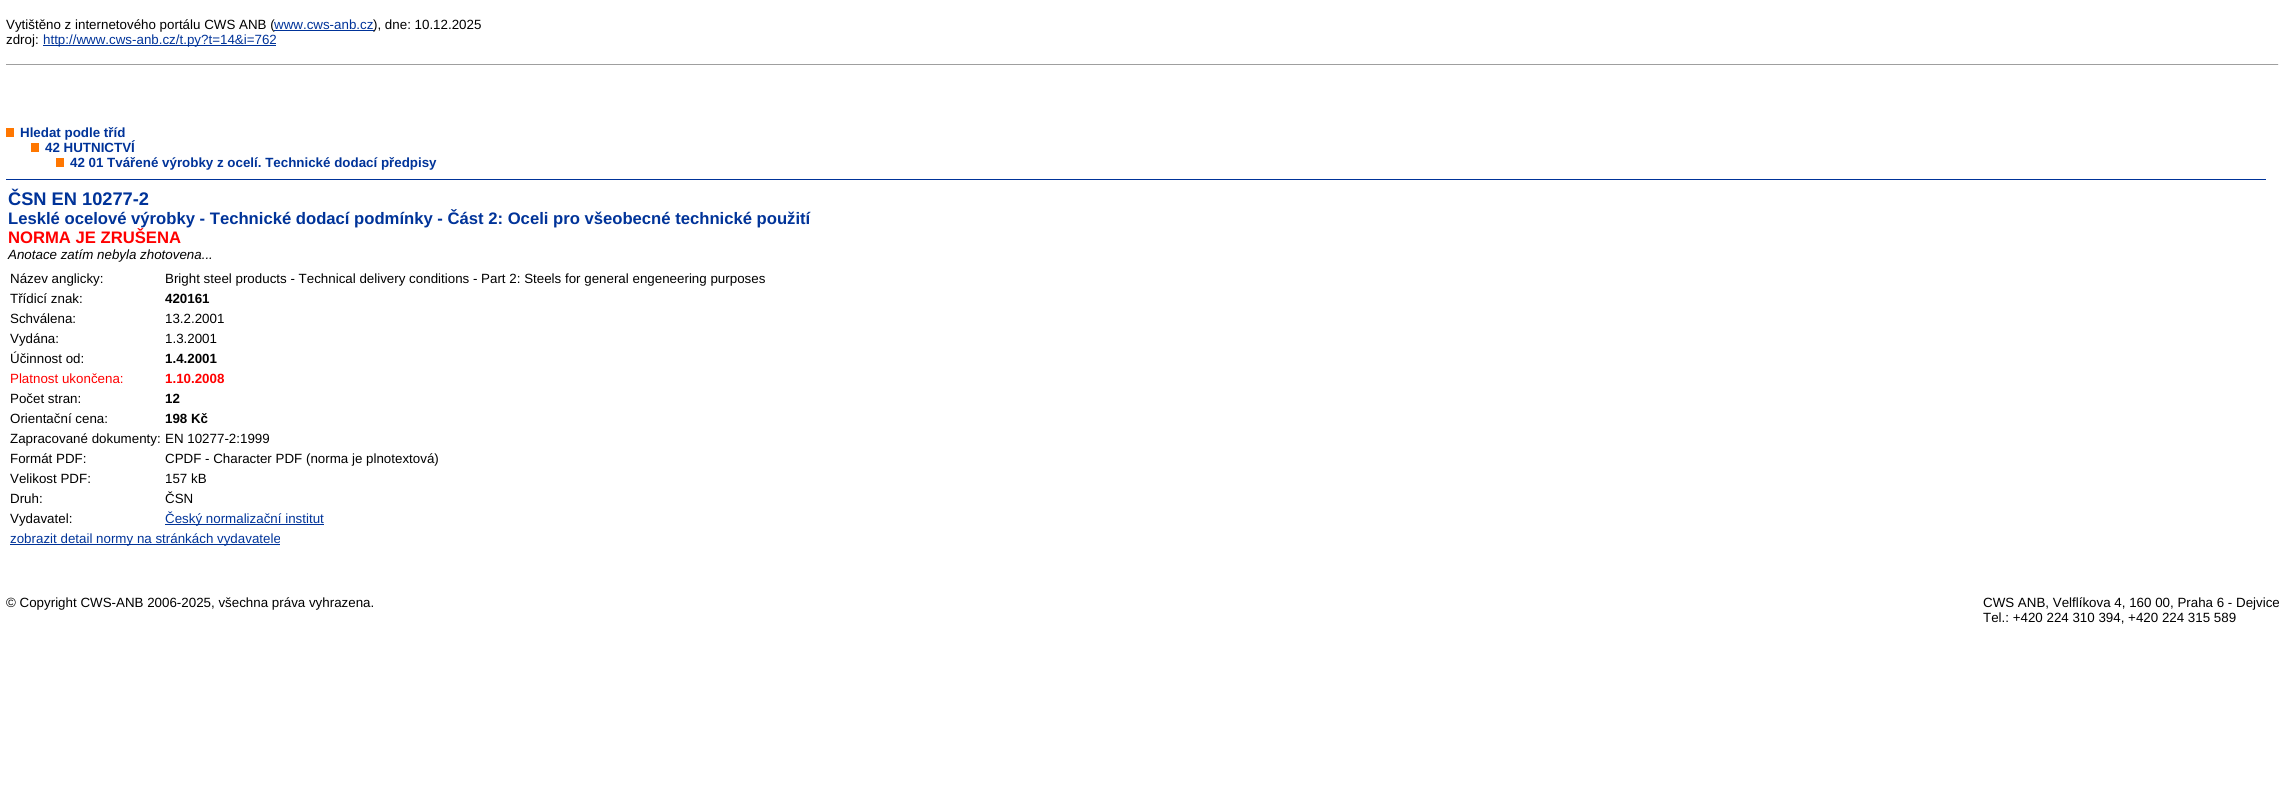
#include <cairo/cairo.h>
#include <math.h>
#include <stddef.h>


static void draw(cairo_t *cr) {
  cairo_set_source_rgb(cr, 1, 1, 1);
  cairo_paint(cr);
  cairo_set_source_rgb(cr, 0, 51 / 255.0, 153 / 255.0);
  cairo_rectangle(cr, 43, 45, 233, 1);
  cairo_fill(cr);
  cairo_set_source_rgb(cr, 159 / 255.0, 159 / 255.0, 159 / 255.0);
  cairo_rectangle(cr, 6, 64, 2273, 1);
  cairo_fill(cr);
  cairo_set_source_rgb(cr, 238 / 255.0, 238 / 255.0, 238 / 255.0);
  cairo_rectangle(cr, 2278, 64, 1, 1);
  cairo_fill(cr);
  cairo_set_source_rgb(cr, 1, 119 / 255.0, 0);
  cairo_rectangle(cr, 6, 128, 8, 9);
  cairo_fill(cr);
  cairo_rectangle(cr, 31, 143, 8, 9);
  cairo_fill(cr);
  cairo_rectangle(cr, 56, 158, 8, 9);
  cairo_fill(cr);
  cairo_set_source_rgb(cr, 0, 51 / 255.0, 153 / 255.0);
  cairo_rectangle(cr, 6, 179, 2260, 1);
  cairo_fill(cr);
  cairo_rectangle(cr, 165, 524, 159, 1);
  cairo_fill(cr);
  cairo_rectangle(cr, 10, 544, 270, 1);
  cairo_fill(cr);
  cairo_select_font_face(cr, "Liberation Sans", CAIRO_FONT_SLANT_NORMAL, CAIRO_FONT_WEIGHT_NORMAL);
  cairo_set_font_size(cr, 13.35);
  cairo_set_source_rgb(cr, 0, 0, 0);
  cairo_move_to(cr, 6, 29);
  cairo_show_text(cr, "Vytištěno z internetového portálu CWS ANB (");
  cairo_set_source_rgb(cr, 0, 51 / 255.0, 153 / 255.0);
  cairo_rectangle(cr, 274, 30, 100, 1);
  cairo_fill(cr);
  cairo_move_to(cr, 274, 29);
  cairo_show_text(cr, "www.cws-anb.cz");
  cairo_set_source_rgb(cr, 0, 0, 0);
  cairo_move_to(cr, 373, 29);
  cairo_show_text(cr, "), dne: 10.12.2025");
  cairo_move_to(cr, 6, 44);
  cairo_show_text(cr, "zdroj:");
  cairo_set_source_rgb(cr, 0, 51 / 255.0, 153 / 255.0);
  cairo_move_to(cr, 43, 44);
  cairo_show_text(cr, "http://www.cws-anb.cz/t.py?t=14&i=762");
  cairo_select_font_face(cr, "Liberation Sans", CAIRO_FONT_SLANT_NORMAL, CAIRO_FONT_WEIGHT_BOLD);
  cairo_move_to(cr, 20, 137);
  cairo_show_text(cr, "Hledat podle tříd");
  cairo_move_to(cr, 45, 152);
  cairo_show_text(cr, "42 HUTNICTVÍ");
  cairo_move_to(cr, 70, 167);
  cairo_show_text(cr, "42 01 Tvářené výrobky z ocelí. Technické dodací předpisy");
  cairo_set_font_size(cr, 18.25);
  cairo_move_to(cr, 8, 205);
  cairo_show_text(cr, "ČSN EN 10277-2");
  cairo_set_font_size(cr, 16.65);
  cairo_move_to(cr, 8, 224);
  cairo_show_text(cr, "Lesklé ocelové výrobky - Technické dodací podmínky - Část 2: Oceli pro všeobecné technické použití");
  cairo_set_source_rgb(cr, 1, 0, 0);
  cairo_move_to(cr, 8, 243);
  cairo_show_text(cr, "NORMA JE ZRUŠENA");
  cairo_select_font_face(cr, "Liberation Sans", CAIRO_FONT_SLANT_ITALIC, CAIRO_FONT_WEIGHT_NORMAL);
  cairo_set_font_size(cr, 13.35);
  cairo_set_source_rgb(cr, 0, 0, 0);
  cairo_move_to(cr, 8, 259);
  cairo_show_text(cr, "Anotace zatím nebyla zhotovena...");
  cairo_select_font_face(cr, "Liberation Sans", CAIRO_FONT_SLANT_NORMAL, CAIRO_FONT_WEIGHT_NORMAL);
  cairo_move_to(cr, 10, 283);
  cairo_show_text(cr, "Název anglicky:");
  cairo_move_to(cr, 165, 283);
  cairo_show_text(cr, "Bright steel products - Technical delivery conditions - Part 2: Steels for general engeneering purposes");
  cairo_move_to(cr, 10, 303);
  cairo_show_text(cr, "Třídicí znak:");
  cairo_select_font_face(cr, "Liberation Sans", CAIRO_FONT_SLANT_NORMAL, CAIRO_FONT_WEIGHT_BOLD);
  cairo_move_to(cr, 165, 303);
  cairo_show_text(cr, "420161");
  cairo_select_font_face(cr, "Liberation Sans", CAIRO_FONT_SLANT_NORMAL, CAIRO_FONT_WEIGHT_NORMAL);
  cairo_move_to(cr, 10, 323);
  cairo_show_text(cr, "Schválena:");
  cairo_move_to(cr, 165, 323);
  cairo_show_text(cr, "13.2.2001");
  cairo_move_to(cr, 10, 343);
  cairo_show_text(cr, "Vydána:");
  cairo_move_to(cr, 165, 343);
  cairo_show_text(cr, "1.3.2001");
  cairo_move_to(cr, 10, 363);
  cairo_show_text(cr, "Účinnost od:");
  cairo_select_font_face(cr, "Liberation Sans", CAIRO_FONT_SLANT_NORMAL, CAIRO_FONT_WEIGHT_BOLD);
  cairo_move_to(cr, 165, 363);
  cairo_show_text(cr, "1.4.2001");
  cairo_select_font_face(cr, "Liberation Sans", CAIRO_FONT_SLANT_NORMAL, CAIRO_FONT_WEIGHT_NORMAL);
  cairo_set_source_rgb(cr, 1, 0, 0);
  cairo_move_to(cr, 10, 383);
  cairo_show_text(cr, "Platnost ukončena:");
  cairo_select_font_face(cr, "Liberation Sans", CAIRO_FONT_SLANT_NORMAL, CAIRO_FONT_WEIGHT_BOLD);
  cairo_move_to(cr, 165, 383);
  cairo_show_text(cr, "1.10.2008");
  cairo_select_font_face(cr, "Liberation Sans", CAIRO_FONT_SLANT_NORMAL, CAIRO_FONT_WEIGHT_NORMAL);
  cairo_set_source_rgb(cr, 0, 0, 0);
  cairo_move_to(cr, 10, 403);
  cairo_show_text(cr, "Počet stran:");
  cairo_select_font_face(cr, "Liberation Sans", CAIRO_FONT_SLANT_NORMAL, CAIRO_FONT_WEIGHT_BOLD);
  cairo_move_to(cr, 165, 403);
  cairo_show_text(cr, "12");
  cairo_select_font_face(cr, "Liberation Sans", CAIRO_FONT_SLANT_NORMAL, CAIRO_FONT_WEIGHT_NORMAL);
  cairo_move_to(cr, 10, 423);
  cairo_show_text(cr, "Orientační cena:");
  cairo_select_font_face(cr, "Liberation Sans", CAIRO_FONT_SLANT_NORMAL, CAIRO_FONT_WEIGHT_BOLD);
  cairo_move_to(cr, 165, 423);
  cairo_show_text(cr, "198 Kč");
  cairo_select_font_face(cr, "Liberation Sans", CAIRO_FONT_SLANT_NORMAL, CAIRO_FONT_WEIGHT_NORMAL);
  cairo_move_to(cr, 10, 443);
  cairo_show_text(cr, "Zapracované dokumenty:");
  cairo_move_to(cr, 165, 443);
  cairo_show_text(cr, "EN 10277-2:1999");
  cairo_move_to(cr, 10, 463);
  cairo_show_text(cr, "Formát PDF:");
  cairo_move_to(cr, 165, 463);
  cairo_show_text(cr, "CPDF - Character PDF (norma je plnotextová)");
  cairo_move_to(cr, 10, 483);
  cairo_show_text(cr, "Velikost PDF:");
  cairo_move_to(cr, 165, 483);
  cairo_show_text(cr, "157 kB");
  cairo_move_to(cr, 10, 503);
  cairo_show_text(cr, "Druh:");
  cairo_move_to(cr, 165, 503);
  cairo_show_text(cr, "ČSN");
  cairo_move_to(cr, 10, 523);
  cairo_show_text(cr, "Vydavatel:");
  cairo_set_source_rgb(cr, 0, 51 / 255.0, 153 / 255.0);
  cairo_move_to(cr, 165, 523);
  cairo_show_text(cr, "Český normalizační institut");
  cairo_move_to(cr, 10, 543);
  cairo_show_text(cr, "zobrazit detail normy na stránkách vydavatele");
  cairo_set_source_rgb(cr, 0, 0, 0);
  cairo_move_to(cr, 6, 607);
  cairo_show_text(cr, "© Copyright CWS-ANB 2006-2025, všechna práva vyhrazena.");
  cairo_move_to(cr, 1983, 607);
  cairo_show_text(cr, "CWS ANB, Velflíkova 4, 160 00, Praha 6 - Dejvice");
  cairo_move_to(cr, 1983, 622);
  cairo_show_text(cr, "Tel.: +420 224 310 394, +420 224 315 589");
}

int main(void) {
  cairo_surface_t *surface = cairo_image_surface_create(CAIRO_FORMAT_RGB24, 2284, 787);
  cairo_t *cr = cairo_create(surface);
  cairo_font_options_t *options = cairo_font_options_create();
  cairo_font_options_set_hint_metrics(options, CAIRO_HINT_METRICS_OFF);
  cairo_font_options_set_hint_style(options, CAIRO_HINT_STYLE_NONE);
  cairo_set_font_options(cr, options);
  cairo_set_miter_limit(cr, 4);
  draw(cr);
  cairo_surface_write_to_png(surface, "out.png");
  cairo_font_options_destroy(options);
  cairo_destroy(cr);
  cairo_surface_destroy(surface);
  return 0;
}
